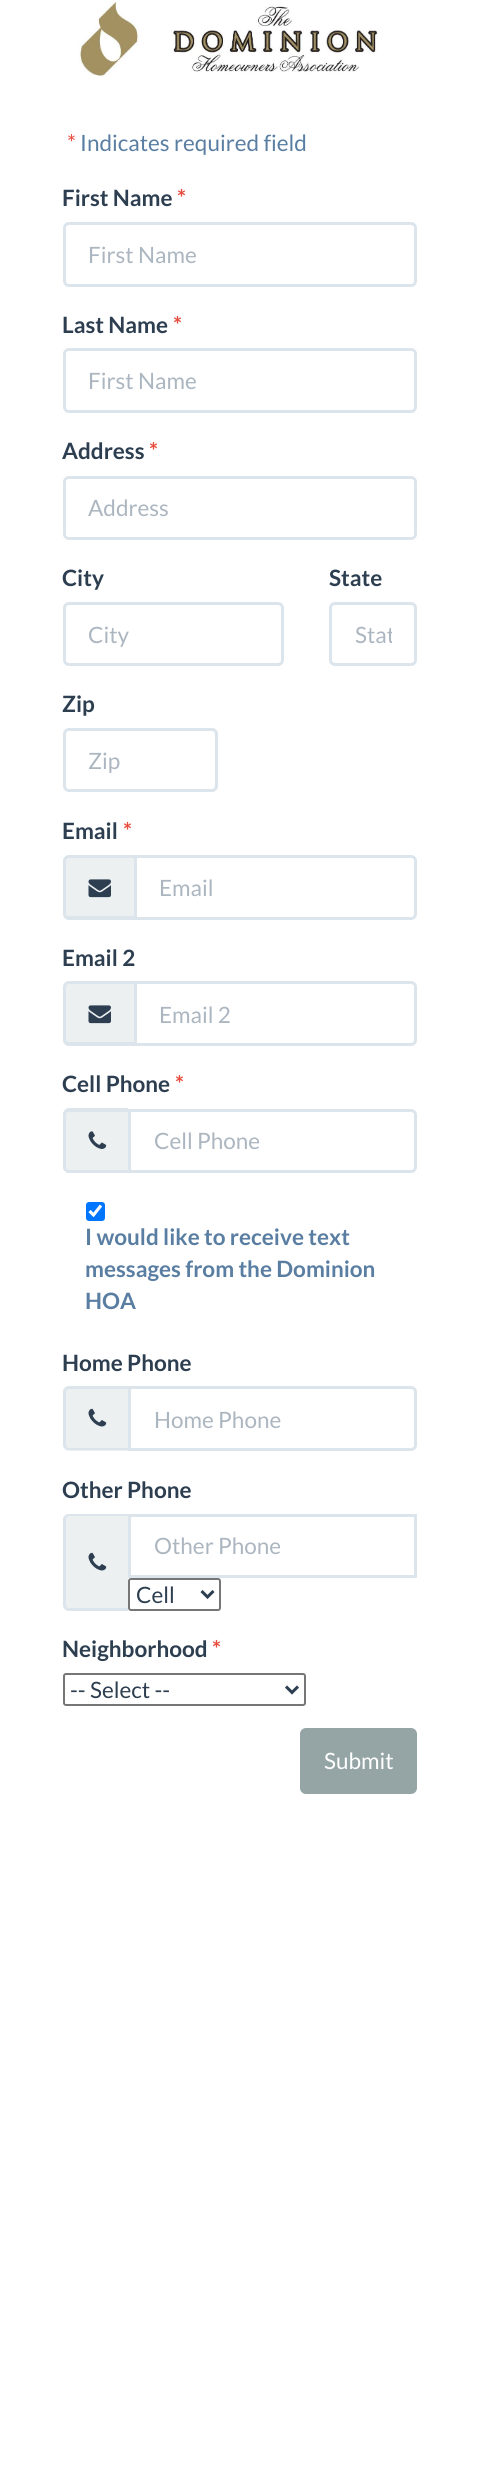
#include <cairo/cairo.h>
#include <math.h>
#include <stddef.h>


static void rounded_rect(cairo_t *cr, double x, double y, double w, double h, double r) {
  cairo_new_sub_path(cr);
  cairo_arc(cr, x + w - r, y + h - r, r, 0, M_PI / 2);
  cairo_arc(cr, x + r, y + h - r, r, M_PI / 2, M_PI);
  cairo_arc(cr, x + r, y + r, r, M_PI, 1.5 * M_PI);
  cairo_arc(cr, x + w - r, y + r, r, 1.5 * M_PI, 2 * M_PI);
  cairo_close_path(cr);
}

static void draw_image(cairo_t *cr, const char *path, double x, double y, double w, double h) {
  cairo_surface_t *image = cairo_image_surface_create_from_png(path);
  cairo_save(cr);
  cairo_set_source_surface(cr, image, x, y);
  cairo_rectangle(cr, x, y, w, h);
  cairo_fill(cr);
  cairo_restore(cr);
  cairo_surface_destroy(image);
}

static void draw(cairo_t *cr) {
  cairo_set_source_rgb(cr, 1, 1, 1);
  cairo_paint(cr);
  draw_image(cr, "images/1.png", 78, 1, 300, 76);
  rounded_rect(cr, 64.5, 223.5, 351, 62, 4.5);
  cairo_set_source_rgb(cr, 220 / 255.0, 228 / 255.0, 236 / 255.0);
  cairo_set_line_width(cr, 3);
  cairo_stroke(cr);
  rounded_rect(cr, 64.5, 349.5, 351, 62, 4.5);
  cairo_stroke(cr);
  rounded_rect(cr, 64.5, 477.5, 351, 61, 4.5);
  cairo_stroke(cr);
  rounded_rect(cr, 64.5, 603.5, 218, 61, 4.5);
  cairo_stroke(cr);
  rounded_rect(cr, 330.5, 603.5, 85, 61, 4.5);
  cairo_stroke(cr);
  rounded_rect(cr, 64.5, 729.5, 152, 61, 4.5);
  cairo_stroke(cr);
  cairo_set_source_rgb(cr, 236 / 255.0, 240 / 255.0, 241 / 255.0);
  cairo_new_path(cr);
  cairo_move_to(cr, 69, 855);
  cairo_line_to(cr, 134, 855);
  cairo_line_to(cr, 134, 920);
  cairo_line_to(cr, 69, 920);
  cairo_curve_to(cr, 65.5, 920, 63, 917.5, 63, 914);
  cairo_line_to(cr, 63, 861);
  cairo_curve_to(cr, 63, 857.5, 65.5, 855, 69, 855);
  cairo_close_path(cr);
  cairo_fill(cr);
  cairo_set_source_rgb(cr, 220 / 255.0, 228 / 255.0, 236 / 255.0);
  cairo_set_fill_rule(cr, CAIRO_FILL_RULE_EVEN_ODD);
  cairo_new_path(cr);
  cairo_move_to(cr, 69, 855);
  cairo_line_to(cr, 134, 855);
  cairo_line_to(cr, 134, 920);
  cairo_line_to(cr, 69, 920);
  cairo_curve_to(cr, 66, 920, 63, 917, 63, 914);
  cairo_line_to(cr, 63, 861);
  cairo_curve_to(cr, 63, 858, 66, 855, 69, 855);
  cairo_close_path(cr);
  cairo_move_to(cr, 69, 858);
  cairo_line_to(cr, 134, 858);
  cairo_line_to(cr, 134, 916);
  cairo_line_to(cr, 69, 916);
  cairo_curve_to(cr, 67, 916, 66, 915, 66, 914);
  cairo_line_to(cr, 66, 861);
  cairo_curve_to(cr, 66, 859, 67, 858, 69, 858);
  cairo_close_path(cr);
  cairo_fill(cr);
  draw_image(cr, "images/2.png", 88, 879, 23, 19);
  cairo_new_path(cr);
  cairo_move_to(cr, 135.5, 856.5);
  cairo_line_to(cr, 411, 856.5);
  cairo_curve_to(cr, 413.5, 856.5, 415.5, 858.5, 415.5, 861);
  cairo_line_to(cr, 415.5, 914);
  cairo_curve_to(cr, 415.5, 916.5, 413.5, 918.5, 411, 918.5);
  cairo_line_to(cr, 135.5, 918.5);
  cairo_close_path(cr);
  cairo_stroke(cr);
  cairo_set_source_rgb(cr, 236 / 255.0, 240 / 255.0, 241 / 255.0);
  cairo_new_path(cr);
  cairo_move_to(cr, 69, 981);
  cairo_line_to(cr, 134, 981);
  cairo_line_to(cr, 134, 1046);
  cairo_line_to(cr, 69, 1046);
  cairo_curve_to(cr, 65.5, 1046, 63, 1043.5, 63, 1040);
  cairo_line_to(cr, 63, 987);
  cairo_curve_to(cr, 63, 983.5, 65.5, 981, 69, 981);
  cairo_close_path(cr);
  cairo_fill(cr);
  cairo_set_source_rgb(cr, 220 / 255.0, 228 / 255.0, 236 / 255.0);
  cairo_new_path(cr);
  cairo_move_to(cr, 69, 981);
  cairo_line_to(cr, 134, 981);
  cairo_line_to(cr, 134, 1046);
  cairo_line_to(cr, 69, 1046);
  cairo_curve_to(cr, 66, 1046, 63, 1043, 63, 1040);
  cairo_line_to(cr, 63, 987);
  cairo_curve_to(cr, 63, 984, 66, 981, 69, 981);
  cairo_close_path(cr);
  cairo_move_to(cr, 69, 984);
  cairo_line_to(cr, 134, 984);
  cairo_line_to(cr, 134, 1042);
  cairo_line_to(cr, 69, 1042);
  cairo_curve_to(cr, 67, 1042, 66, 1041, 66, 1040);
  cairo_line_to(cr, 66, 987);
  cairo_curve_to(cr, 66, 985, 67, 984, 69, 984);
  cairo_close_path(cr);
  cairo_fill(cr);
  draw_image(cr, "images/2.png", 88, 1005, 23, 19);
  cairo_new_path(cr);
  cairo_move_to(cr, 135.5, 982.5);
  cairo_line_to(cr, 411, 982.5);
  cairo_curve_to(cr, 413.5, 982.5, 415.5, 984.5, 415.5, 987);
  cairo_line_to(cr, 415.5, 1040);
  cairo_curve_to(cr, 415.5, 1042.5, 413.5, 1044.5, 411, 1044.5);
  cairo_line_to(cr, 135.5, 1044.5);
  cairo_close_path(cr);
  cairo_stroke(cr);
  cairo_set_source_rgb(cr, 236 / 255.0, 240 / 255.0, 241 / 255.0);
  cairo_new_path(cr);
  cairo_move_to(cr, 69, 1109);
  cairo_line_to(cr, 128, 1109);
  cairo_line_to(cr, 128, 1173);
  cairo_line_to(cr, 69, 1173);
  cairo_curve_to(cr, 65.5, 1173, 63, 1170.5, 63, 1167);
  cairo_line_to(cr, 63, 1115);
  cairo_curve_to(cr, 63, 1111.5, 65.5, 1109, 69, 1109);
  cairo_close_path(cr);
  cairo_fill(cr);
  cairo_set_source_rgb(cr, 220 / 255.0, 228 / 255.0, 236 / 255.0);
  cairo_new_path(cr);
  cairo_move_to(cr, 69, 1108);
  cairo_line_to(cr, 128, 1108);
  cairo_line_to(cr, 128, 1173);
  cairo_line_to(cr, 69, 1173);
  cairo_curve_to(cr, 66, 1173, 63, 1170, 63, 1167);
  cairo_line_to(cr, 63, 1114);
  cairo_curve_to(cr, 63, 1111, 66, 1108, 69, 1108);
  cairo_close_path(cr);
  cairo_move_to(cr, 69, 1112);
  cairo_line_to(cr, 128, 1112);
  cairo_line_to(cr, 128, 1170);
  cairo_line_to(cr, 69, 1170);
  cairo_curve_to(cr, 67, 1170, 66, 1169, 66, 1167);
  cairo_line_to(cr, 66, 1114);
  cairo_curve_to(cr, 66, 1113, 67, 1112, 69, 1112);
  cairo_close_path(cr);
  cairo_fill(cr);
  draw_image(cr, "images/3.png", 88, 1131, 19, 18);
  cairo_new_path(cr);
  cairo_move_to(cr, 129.5, 1110.5);
  cairo_line_to(cr, 411, 1110.5);
  cairo_curve_to(cr, 413.5, 1110.5, 415.5, 1112.5, 415.5, 1115);
  cairo_line_to(cr, 415.5, 1167);
  cairo_curve_to(cr, 415.5, 1169.5, 413.5, 1171.5, 411, 1171.5);
  cairo_line_to(cr, 129.5, 1171.5);
  cairo_close_path(cr);
  cairo_stroke(cr);
  cairo_set_source_rgb(cr, 0, 117 / 255.0, 1);
  rounded_rect(cr, 86, 1202, 19, 19, 3);
  cairo_fill(cr);
  cairo_new_path(cr);
  cairo_move_to(cr, 89.5, 1211);
  cairo_line_to(cr, 93.5, 1215);
  cairo_line_to(cr, 101, 1205.5);
  cairo_set_source_rgb(cr, 1, 1, 1);
  cairo_set_line_width(cr, 3.1);
  cairo_stroke(cr);
  cairo_set_source_rgb(cr, 236 / 255.0, 240 / 255.0, 241 / 255.0);
  cairo_new_path(cr);
  cairo_move_to(cr, 69, 1386);
  cairo_line_to(cr, 128, 1386);
  cairo_line_to(cr, 128, 1451);
  cairo_line_to(cr, 69, 1451);
  cairo_curve_to(cr, 65.5, 1451, 63, 1448.5, 63, 1445);
  cairo_line_to(cr, 63, 1392);
  cairo_curve_to(cr, 63, 1388.5, 65.5, 1386, 69, 1386);
  cairo_close_path(cr);
  cairo_fill(cr);
  cairo_set_source_rgb(cr, 220 / 255.0, 228 / 255.0, 236 / 255.0);
  cairo_new_path(cr);
  cairo_move_to(cr, 69, 1386);
  cairo_line_to(cr, 128, 1386);
  cairo_line_to(cr, 128, 1450);
  cairo_line_to(cr, 69, 1450);
  cairo_curve_to(cr, 66, 1450, 63, 1448, 63, 1444);
  cairo_line_to(cr, 63, 1392);
  cairo_curve_to(cr, 63, 1389, 66, 1386, 69, 1386);
  cairo_close_path(cr);
  cairo_move_to(cr, 69, 1389);
  cairo_line_to(cr, 128, 1389);
  cairo_line_to(cr, 128, 1448);
  cairo_line_to(cr, 69, 1448);
  cairo_curve_to(cr, 67, 1448, 66, 1446, 66, 1444);
  cairo_line_to(cr, 66, 1392);
  cairo_curve_to(cr, 66, 1390, 67, 1389, 69, 1389);
  cairo_close_path(cr);
  cairo_fill(cr);
  draw_image(cr, "images/4.png", 88, 1408, 19, 19);
  cairo_new_path(cr);
  cairo_move_to(cr, 129.5, 1387.5);
  cairo_line_to(cr, 411, 1387.5);
  cairo_curve_to(cr, 413.5, 1387.5, 415.5, 1389.5, 415.5, 1392);
  cairo_line_to(cr, 415.5, 1445);
  cairo_curve_to(cr, 415.5, 1447.5, 413.5, 1449.5, 411, 1449.5);
  cairo_line_to(cr, 129.5, 1449.5);
  cairo_close_path(cr);
  cairo_set_line_width(cr, 3);
  cairo_stroke(cr);
  cairo_set_source_rgb(cr, 236 / 255.0, 240 / 255.0, 241 / 255.0);
  cairo_new_path(cr);
  cairo_move_to(cr, 69, 1514);
  cairo_line_to(cr, 128, 1514);
  cairo_line_to(cr, 128, 1611);
  cairo_line_to(cr, 69, 1611);
  cairo_curve_to(cr, 65.5, 1611, 63, 1608.5, 63, 1605);
  cairo_line_to(cr, 63, 1520);
  cairo_curve_to(cr, 63, 1516.5, 65.5, 1514, 69, 1514);
  cairo_close_path(cr);
  cairo_fill(cr);
  cairo_set_source_rgb(cr, 220 / 255.0, 228 / 255.0, 236 / 255.0);
  cairo_new_path(cr);
  cairo_move_to(cr, 69, 1514);
  cairo_line_to(cr, 128, 1514);
  cairo_line_to(cr, 128, 1611);
  cairo_line_to(cr, 69, 1611);
  cairo_curve_to(cr, 66, 1611, 63, 1608, 63, 1605);
  cairo_line_to(cr, 63, 1520);
  cairo_curve_to(cr, 63, 1516, 66, 1514, 69, 1514);
  cairo_close_path(cr);
  cairo_move_to(cr, 69, 1516);
  cairo_line_to(cr, 128, 1516);
  cairo_line_to(cr, 128, 1608);
  cairo_line_to(cr, 69, 1608);
  cairo_curve_to(cr, 67, 1608, 66, 1607, 66, 1605);
  cairo_line_to(cr, 66, 1520);
  cairo_curve_to(cr, 66, 1518, 67, 1516, 69, 1516);
  cairo_close_path(cr);
  cairo_fill(cr);
  draw_image(cr, "images/4.png", 88, 1552, 19, 19);
  cairo_rectangle(cr, 129.5, 1515.5, 286, 61);
  cairo_stroke(cr);
  rounded_rect(cr, 129, 1579, 91, 31, 2);
  cairo_set_source_rgb(cr, 118 / 255.0, 118 / 255.0, 118 / 255.0);
  cairo_set_line_width(cr, 2);
  cairo_stroke(cr);
  cairo_new_path(cr);
  cairo_move_to(cr, 201.5, 1591);
  cairo_line_to(cr, 207.5, 1597);
  cairo_line_to(cr, 213.5, 1591);
  cairo_set_source_rgb(cr, 44 / 255.0, 62 / 255.0, 80 / 255.0);
  cairo_set_line_width(cr, 3);
  cairo_stroke(cr);
  rounded_rect(cr, 64, 1674, 241, 31, 2);
  cairo_set_source_rgb(cr, 118 / 255.0, 118 / 255.0, 118 / 255.0);
  cairo_set_line_width(cr, 2);
  cairo_stroke(cr);
  cairo_new_path(cr);
  cairo_move_to(cr, 286, 1686.5);
  cairo_line_to(cr, 292, 1692.5);
  cairo_line_to(cr, 298, 1686.5);
  cairo_set_source_rgb(cr, 44 / 255.0, 62 / 255.0, 80 / 255.0);
  cairo_set_line_width(cr, 3);
  cairo_stroke(cr);
  cairo_set_source_rgb(cr, 149 / 255.0, 165 / 255.0, 166 / 255.0);
  rounded_rect(cr, 301, 1729, 115, 64, 5);
  cairo_fill_preserve(cr);
  cairo_set_line_width(cr, 2);
  cairo_stroke(cr);
  cairo_select_font_face(cr, "Lato", CAIRO_FONT_SLANT_NORMAL, CAIRO_FONT_WEIGHT_NORMAL);
  cairo_set_font_size(cr, 22.5);
  cairo_set_source_rgb(cr, 231 / 255.0, 76 / 255.0, 60 / 255.0);
  cairo_move_to(cr, 67, 151);
  cairo_show_text(cr, "*");
  cairo_set_source_rgb(cr, 89 / 255.0, 126 / 255.0, 162 / 255.0);
  cairo_move_to(cr, 80, 151);
  cairo_show_text(cr, "Indicates required field");
  cairo_select_font_face(cr, "Lato", CAIRO_FONT_SLANT_NORMAL, CAIRO_FONT_WEIGHT_BOLD);
  cairo_set_source_rgb(cr, 44 / 255.0, 62 / 255.0, 80 / 255.0);
  cairo_move_to(cr, 62, 206);
  cairo_show_text(cr, "First Name");
  cairo_set_source_rgb(cr, 231 / 255.0, 76 / 255.0, 60 / 255.0);
  cairo_move_to(cr, 177, 206);
  cairo_show_text(cr, "*");
  cairo_select_font_face(cr, "Lato", CAIRO_FONT_SLANT_NORMAL, CAIRO_FONT_WEIGHT_NORMAL);
  cairo_set_source_rgb(cr, 172 / 255.0, 182 / 255.0, 192 / 255.0);
  cairo_move_to(cr, 88, 263);
  cairo_show_text(cr, "First Name");
  cairo_select_font_face(cr, "Lato", CAIRO_FONT_SLANT_NORMAL, CAIRO_FONT_WEIGHT_BOLD);
  cairo_set_source_rgb(cr, 44 / 255.0, 62 / 255.0, 80 / 255.0);
  cairo_move_to(cr, 62, 333);
  cairo_show_text(cr, "Last Name");
  cairo_set_source_rgb(cr, 231 / 255.0, 76 / 255.0, 60 / 255.0);
  cairo_move_to(cr, 173, 333);
  cairo_show_text(cr, "*");
  cairo_select_font_face(cr, "Lato", CAIRO_FONT_SLANT_NORMAL, CAIRO_FONT_WEIGHT_NORMAL);
  cairo_set_source_rgb(cr, 172 / 255.0, 182 / 255.0, 192 / 255.0);
  cairo_move_to(cr, 88, 389);
  cairo_show_text(cr, "First Name");
  cairo_select_font_face(cr, "Lato", CAIRO_FONT_SLANT_NORMAL, CAIRO_FONT_WEIGHT_BOLD);
  cairo_set_source_rgb(cr, 44 / 255.0, 62 / 255.0, 80 / 255.0);
  cairo_move_to(cr, 62, 459);
  cairo_show_text(cr, "Address");
  cairo_set_source_rgb(cr, 231 / 255.0, 76 / 255.0, 60 / 255.0);
  cairo_move_to(cr, 149, 459);
  cairo_show_text(cr, "*");
  cairo_select_font_face(cr, "Lato", CAIRO_FONT_SLANT_NORMAL, CAIRO_FONT_WEIGHT_NORMAL);
  cairo_set_source_rgb(cr, 172 / 255.0, 182 / 255.0, 192 / 255.0);
  cairo_move_to(cr, 88, 516);
  cairo_show_text(cr, "Address");
  cairo_select_font_face(cr, "Lato", CAIRO_FONT_SLANT_NORMAL, CAIRO_FONT_WEIGHT_BOLD);
  cairo_set_source_rgb(cr, 44 / 255.0, 62 / 255.0, 80 / 255.0);
  cairo_move_to(cr, 62, 586);
  cairo_show_text(cr, "City");
  cairo_select_font_face(cr, "Lato", CAIRO_FONT_SLANT_NORMAL, CAIRO_FONT_WEIGHT_NORMAL);
  cairo_set_source_rgb(cr, 172 / 255.0, 182 / 255.0, 192 / 255.0);
  cairo_move_to(cr, 88, 643);
  cairo_show_text(cr, "City");
  cairo_select_font_face(cr, "Lato", CAIRO_FONT_SLANT_NORMAL, CAIRO_FONT_WEIGHT_BOLD);
  cairo_set_source_rgb(cr, 44 / 255.0, 62 / 255.0, 80 / 255.0);
  cairo_move_to(cr, 329, 586);
  cairo_show_text(cr, "State");
  cairo_save(cr);
  cairo_set_fill_rule(cr, CAIRO_FILL_RULE_WINDING);
  cairo_rectangle(cr, 354, 620, 38, 27);
  cairo_clip(cr);
  cairo_select_font_face(cr, "Lato", CAIRO_FONT_SLANT_NORMAL, CAIRO_FONT_WEIGHT_NORMAL);
  cairo_set_source_rgb(cr, 172 / 255.0, 182 / 255.0, 192 / 255.0);
  cairo_move_to(cr, 355, 643);
  cairo_show_text(cr, "Stat");
  cairo_restore(cr);
  cairo_move_to(cr, 62, 712);
  cairo_show_text(cr, "Zip");
  cairo_select_font_face(cr, "Lato", CAIRO_FONT_SLANT_NORMAL, CAIRO_FONT_WEIGHT_NORMAL);
  cairo_set_source_rgb(cr, 172 / 255.0, 182 / 255.0, 192 / 255.0);
  cairo_move_to(cr, 88, 769);
  cairo_show_text(cr, "Zip");
  cairo_select_font_face(cr, "Lato", CAIRO_FONT_SLANT_NORMAL, CAIRO_FONT_WEIGHT_BOLD);
  cairo_set_source_rgb(cr, 44 / 255.0, 62 / 255.0, 80 / 255.0);
  cairo_move_to(cr, 62, 839);
  cairo_show_text(cr, "Email");
  cairo_set_source_rgb(cr, 231 / 255.0, 76 / 255.0, 60 / 255.0);
  cairo_move_to(cr, 123, 839);
  cairo_show_text(cr, "*");
  cairo_select_font_face(cr, "Lato", CAIRO_FONT_SLANT_NORMAL, CAIRO_FONT_WEIGHT_NORMAL);
  cairo_set_source_rgb(cr, 172 / 255.0, 182 / 255.0, 192 / 255.0);
  cairo_move_to(cr, 159, 896);
  cairo_show_text(cr, "Email");
  cairo_select_font_face(cr, "Lato", CAIRO_FONT_SLANT_NORMAL, CAIRO_FONT_WEIGHT_BOLD);
  cairo_set_source_rgb(cr, 44 / 255.0, 62 / 255.0, 80 / 255.0);
  cairo_move_to(cr, 62, 966);
  cairo_show_text(cr, "Email 2");
  cairo_select_font_face(cr, "Lato", CAIRO_FONT_SLANT_NORMAL, CAIRO_FONT_WEIGHT_NORMAL);
  cairo_set_source_rgb(cr, 172 / 255.0, 182 / 255.0, 192 / 255.0);
  cairo_move_to(cr, 159, 1023);
  cairo_show_text(cr, "Email 2");
  cairo_select_font_face(cr, "Lato", CAIRO_FONT_SLANT_NORMAL, CAIRO_FONT_WEIGHT_BOLD);
  cairo_set_source_rgb(cr, 44 / 255.0, 62 / 255.0, 80 / 255.0);
  cairo_move_to(cr, 62, 1092);
  cairo_show_text(cr, "Cell Phone");
  cairo_set_source_rgb(cr, 231 / 255.0, 76 / 255.0, 60 / 255.0);
  cairo_move_to(cr, 175, 1092);
  cairo_show_text(cr, "*");
  cairo_select_font_face(cr, "Lato", CAIRO_FONT_SLANT_NORMAL, CAIRO_FONT_WEIGHT_NORMAL);
  cairo_set_source_rgb(cr, 172 / 255.0, 182 / 255.0, 192 / 255.0);
  cairo_move_to(cr, 154, 1149);
  cairo_show_text(cr, "Cell Phone");
  cairo_select_font_face(cr, "Lato", CAIRO_FONT_SLANT_NORMAL, CAIRO_FONT_WEIGHT_BOLD);
  cairo_set_source_rgb(cr, 89 / 255.0, 126 / 255.0, 162 / 255.0);
  cairo_move_to(cr, 85, 1245);
  cairo_show_text(cr, "I would like to receive text");
  cairo_move_to(cr, 85, 1277);
  cairo_show_text(cr, "messages from the Dominion");
  cairo_move_to(cr, 85, 1309);
  cairo_show_text(cr, "HOA");
  cairo_set_source_rgb(cr, 44 / 255.0, 62 / 255.0, 80 / 255.0);
  cairo_move_to(cr, 62, 1371);
  cairo_show_text(cr, "Home Phone");
  cairo_select_font_face(cr, "Lato", CAIRO_FONT_SLANT_NORMAL, CAIRO_FONT_WEIGHT_NORMAL);
  cairo_set_source_rgb(cr, 172 / 255.0, 182 / 255.0, 192 / 255.0);
  cairo_move_to(cr, 154, 1428);
  cairo_show_text(cr, "Home Phone");
  cairo_select_font_face(cr, "Lato", CAIRO_FONT_SLANT_NORMAL, CAIRO_FONT_WEIGHT_BOLD);
  cairo_set_source_rgb(cr, 44 / 255.0, 62 / 255.0, 80 / 255.0);
  cairo_move_to(cr, 62, 1498);
  cairo_show_text(cr, "Other Phone");
  cairo_select_font_face(cr, "Lato", CAIRO_FONT_SLANT_NORMAL, CAIRO_FONT_WEIGHT_NORMAL);
  cairo_set_source_rgb(cr, 172 / 255.0, 182 / 255.0, 192 / 255.0);
  cairo_move_to(cr, 154, 1554);
  cairo_show_text(cr, "Other Phone");
  cairo_set_source_rgb(cr, 44 / 255.0, 62 / 255.0, 80 / 255.0);
  cairo_move_to(cr, 136, 1603);
  cairo_show_text(cr, "Cell");
  cairo_select_font_face(cr, "Lato", CAIRO_FONT_SLANT_NORMAL, CAIRO_FONT_WEIGHT_BOLD);
  cairo_move_to(cr, 62, 1657);
  cairo_show_text(cr, "Neighborhood");
  cairo_set_source_rgb(cr, 231 / 255.0, 76 / 255.0, 60 / 255.0);
  cairo_move_to(cr, 212, 1657);
  cairo_show_text(cr, "*");
  cairo_select_font_face(cr, "Lato", CAIRO_FONT_SLANT_NORMAL, CAIRO_FONT_WEIGHT_NORMAL);
  cairo_set_source_rgb(cr, 44 / 255.0, 62 / 255.0, 80 / 255.0);
  cairo_move_to(cr, 70, 1698);
  cairo_show_text(cr, "-- Select --");
  cairo_set_source_rgb(cr, 1, 1, 1);
  cairo_move_to(cr, 324, 1769);
  cairo_show_text(cr, "Submit");
}

int main(void) {
  cairo_surface_t *surface = cairo_image_surface_create(CAIRO_FORMAT_RGB24, 479, 2482);
  cairo_t *cr = cairo_create(surface);
  cairo_font_options_t *options = cairo_font_options_create();
  cairo_font_options_set_hint_metrics(options, CAIRO_HINT_METRICS_OFF);
  cairo_font_options_set_hint_style(options, CAIRO_HINT_STYLE_NONE);
  cairo_set_font_options(cr, options);
  cairo_set_miter_limit(cr, 4);
  draw(cr);
  cairo_surface_write_to_png(surface, "out.png");
  cairo_font_options_destroy(options);
  cairo_destroy(cr);
  cairo_surface_destroy(surface);
  return 0;
}
